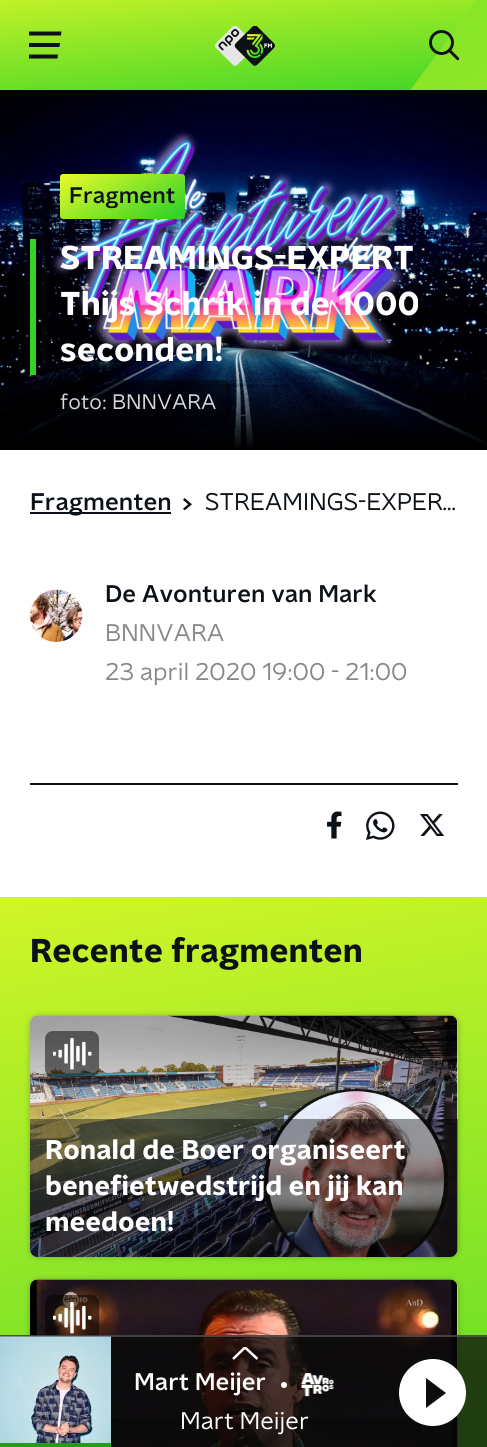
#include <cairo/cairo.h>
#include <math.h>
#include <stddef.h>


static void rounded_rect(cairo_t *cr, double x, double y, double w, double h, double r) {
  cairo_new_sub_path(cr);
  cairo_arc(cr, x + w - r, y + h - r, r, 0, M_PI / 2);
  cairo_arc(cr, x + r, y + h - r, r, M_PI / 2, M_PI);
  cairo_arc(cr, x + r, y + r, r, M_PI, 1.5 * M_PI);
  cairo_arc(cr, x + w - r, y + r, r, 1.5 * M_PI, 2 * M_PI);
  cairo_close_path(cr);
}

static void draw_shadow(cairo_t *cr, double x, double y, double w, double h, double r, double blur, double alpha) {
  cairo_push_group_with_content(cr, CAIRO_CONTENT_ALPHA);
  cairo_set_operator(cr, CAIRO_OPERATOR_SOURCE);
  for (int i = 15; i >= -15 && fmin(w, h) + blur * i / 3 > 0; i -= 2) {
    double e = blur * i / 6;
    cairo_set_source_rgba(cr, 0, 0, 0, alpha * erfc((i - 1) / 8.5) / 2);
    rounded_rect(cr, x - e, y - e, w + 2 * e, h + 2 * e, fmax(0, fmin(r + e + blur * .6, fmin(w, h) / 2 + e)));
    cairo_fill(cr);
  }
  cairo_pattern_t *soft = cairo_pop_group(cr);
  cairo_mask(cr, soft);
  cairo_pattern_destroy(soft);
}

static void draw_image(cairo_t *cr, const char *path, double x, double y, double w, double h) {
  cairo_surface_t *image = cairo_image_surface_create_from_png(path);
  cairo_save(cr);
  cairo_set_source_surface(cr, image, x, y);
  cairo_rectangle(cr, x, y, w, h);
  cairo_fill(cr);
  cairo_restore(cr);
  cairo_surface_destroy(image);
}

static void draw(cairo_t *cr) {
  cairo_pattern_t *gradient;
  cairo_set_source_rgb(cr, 1, 1, 1);
  cairo_paint(cr);
  draw_image(cr, "images/1.png", 0, 0, 487, 90);
  cairo_save(cr);
  cairo_rectangle(cr, 29, 29, 33, 33);
  cairo_clip(cr);
  cairo_set_source_rgb(cr, 11 / 255.0, 17 / 255.0, 22 / 255.0);
  cairo_new_path(cr);
  cairo_move_to(cr, 28.5, 31.5);
  cairo_line_to(cr, 61.5, 31.5);
  cairo_line_to(cr, 61, 35.5);
  cairo_line_to(cr, 28.5, 35.5);
  cairo_close_path(cr);
  cairo_move_to(cr, 28.5, 43);
  cairo_line_to(cr, 60, 43);
  cairo_line_to(cr, 59.5, 47);
  cairo_line_to(cr, 28.5, 47);
  cairo_close_path(cr);
  cairo_move_to(cr, 28.5, 54.5);
  cairo_line_to(cr, 58, 54.5);
  cairo_line_to(cr, 57.5, 58.5);
  cairo_line_to(cr, 28.5, 58.5);
  cairo_close_path(cr);
  cairo_fill(cr);
  cairo_restore(cr);
  draw_image(cr, "images/2.png", 215, 26, 60, 40);
  cairo_arc(cr, 441.5, 42.5, 11, 0, 2 * M_PI);
  cairo_set_source_rgb(cr, 11 / 255.0, 17 / 255.0, 22 / 255.0);
  cairo_set_line_width(cr, 2.9);
  cairo_stroke(cr);
  cairo_save(cr);
  cairo_rectangle(cr, 429, 30, 30, 30);
  cairo_clip(cr);
  cairo_new_path(cr);
  cairo_move_to(cr, 449.5, 50.5);
  cairo_line_to(cr, 458, 59);
  cairo_set_line_cap(cr, CAIRO_LINE_CAP_SQUARE);
  cairo_stroke(cr);
  cairo_restore(cr);
  draw_image(cr, "images/3.png", 0, 90, 487, 360);
  gradient = cairo_pattern_create_linear(93, 145, 147, 240);
  cairo_pattern_add_color_stop_rgba(gradient, 0, 1, 1, 40 / 255.0, 1);
  cairo_pattern_add_color_stop_rgba(gradient, 0.93, 53 / 255.0, 211 / 255.0, 39 / 255.0, 1);
  cairo_set_source(cr, gradient);
  cairo_pattern_destroy(gradient);
  rounded_rect(cr, 60, 174, 125, 45, 3);
  cairo_fill(cr);
  cairo_set_source_rgb(cr, 53 / 255.0, 211 / 255.0, 39 / 255.0);
  cairo_rectangle(cr, 30, 239, 6, 136);
  cairo_fill(cr);
  cairo_set_source_rgba(cr, 0, 0, 0, 0.5);
  rounded_rect(cr, 45, 380, 186, 48, 8);
  cairo_fill(cr);
  cairo_set_source_rgb(cr, 11 / 255.0, 17 / 255.0, 22 / 255.0);
  cairo_rectangle(cr, 30, 512, 141, 2);
  cairo_fill(cr);
  draw_image(cr, "images/4.png", 183, 498, 9, 12);
  draw_image(cr, "images/5.png", 30, 589, 53, 53);
  cairo_rectangle(cr, 30, 783, 428, 2);
  cairo_fill(cr);
  draw_image(cr, "images/6.png", 327, 811, 15, 28);
  draw_image(cr, "images/7.png", 366, 811, 29, 29);
  draw_image(cr, "images/8.png", 420, 814, 25, 22);
  draw_image(cr, "images/9.png", 0, 897, 487, 550);
  cairo_set_source_rgb(cr, 0, 0, 0);
  draw_shadow(cr, 30, 1016, 428, 241, 8, 3, 0.25);
  cairo_set_source_rgb(cr, 1, 1, 1);
  rounded_rect(cr, 30, 1016, 428, 241, 8);
  cairo_fill(cr);
  draw_image(cr, "images/10.png", 30, 1015, 428, 242);
  cairo_set_source_rgba(cr, 0, 0, 0, 0.5);
  rounded_rect(cr, 45, 1031, 54, 46, 8);
  cairo_fill(cr);
  draw_image(cr, "images/11.png", 53, 1038, 39, 32);
  cairo_set_source_rgba(cr, 0, 0, 0, 0.4);
  cairo_new_path(cr);
  cairo_move_to(cr, 30, 1119);
  cairo_line_to(cr, 458, 1119);
  cairo_line_to(cr, 458, 1249);
  cairo_curve_to(cr, 458, 1253.5, 454.5, 1257, 450, 1257);
  cairo_line_to(cr, 38, 1257);
  cairo_curve_to(cr, 33.5, 1257, 30, 1253.5, 30, 1249);
  cairo_close_path(cr);
  cairo_fill(cr);
  cairo_set_source_rgb(cr, 0, 0, 0);
  draw_shadow(cr, 30, 1280, 428, 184, 8, 3, 0.25);
  cairo_set_source_rgb(cr, 1, 1, 1);
  rounded_rect(cr, 30, 1280, 428, 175, 8);
  cairo_fill(cr);
  draw_image(cr, "images/12.png", 30, 1279, 428, 168);
  cairo_set_source_rgba(cr, 0, 0, 0, 0.5);
  rounded_rect(cr, 45, 1295, 54, 46, 8);
  cairo_fill(cr);
  draw_image(cr, "images/13.png", 53, 1302, 39, 32);
  cairo_set_source_rgba(cr, 0, 0, 0, 0.4);
  cairo_rectangle(cr, 111, 1418, 347, 29);
  cairo_fill(cr);
  cairo_set_source_rgba(cr, 9 / 255.0, 9 / 255.0, 9 / 255.0, 0.75);
  cairo_rectangle(cr, 0, 1335, 487, 112);
  cairo_fill(cr);
  cairo_set_source_rgba(cr, 95 / 255.0, 95 / 255.0, 95 / 255.0, 0.65);
  cairo_rectangle(cr, 0, 1335, 487, 2);
  cairo_fill(cr);
  draw_image(cr, "images/14.png", 0, 1336, 111, 107);
  cairo_set_source_rgb(cr, 39 / 255.0, 155 / 255.0, 28 / 255.0);
  cairo_rectangle(cr, 0, 1443, 111, 4);
  cairo_fill(cr);
  cairo_save(cr);
  cairo_rectangle(cr, 231, 1347, 27, 14);
  cairo_clip(cr);
  cairo_new_path(cr);
  cairo_move_to(cr, 257.5, 1359);
  cairo_line_to(cr, 245, 1347.5);
  cairo_line_to(cr, 233, 1359);
  cairo_set_source_rgb(cr, 1, 1, 1);
  cairo_set_line_width(cr, 2.5);
  cairo_stroke(cr);
  cairo_restore(cr);
  cairo_set_source_rgb(cr, 1, 1, 1);
  cairo_arc(cr, 284, 1385, 3, 0, 2 * M_PI);
  cairo_fill(cr);
  draw_image(cr, "images/15.png", 301, 1373, 33, 24);
  cairo_new_path(cr);
  cairo_move_to(cr, 433, 1359);
  cairo_curve_to(cr, 414, 1359, 399, 1374, 399, 1393);
  cairo_curve_to(cr, 399, 1411, 414, 1426, 433, 1426);
  cairo_curve_to(cr, 451, 1426, 466, 1411, 466, 1393);
  cairo_curve_to(cr, 466, 1374, 451, 1359, 433, 1359);
  cairo_close_path(cr);
  cairo_move_to(cr, 426, 1408);
  cairo_line_to(cr, 426, 1378);
  cairo_line_to(cr, 446, 1393);
  cairo_close_path(cr);
  cairo_fill(cr);
  cairo_select_font_face(cr, "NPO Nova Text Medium", CAIRO_FONT_SLANT_NORMAL, CAIRO_FONT_WEIGHT_NORMAL);
  cairo_set_font_size(cr, 22.5);
  cairo_set_source_rgb(cr, 11 / 255.0, 17 / 255.0, 22 / 255.0);
  cairo_move_to(cr, 69, 203);
  cairo_show_text(cr, "Fragment");
  cairo_select_font_face(cr, "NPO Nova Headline", CAIRO_FONT_SLANT_NORMAL, CAIRO_FONT_WEIGHT_BOLD);
  cairo_set_font_size(cr, 33);
  cairo_set_source_rgb(cr, 1, 1, 1);
  cairo_move_to(cr, 60, 269);
  cairo_show_text(cr, "STREAMINGS-EXPERT");
  cairo_move_to(cr, 60, 315);
  cairo_show_text(cr, "Thijs Schrik in de 1000");
  cairo_move_to(cr, 60, 361);
  cairo_show_text(cr, "seconden!");
  cairo_select_font_face(cr, "NPO Nova Text", CAIRO_FONT_SLANT_NORMAL, CAIRO_FONT_WEIGHT_NORMAL);
  cairo_set_font_size(cr, 21);
  cairo_set_source_rgb(cr, 217 / 255.0, 217 / 255.0, 218 / 255.0);
  cairo_move_to(cr, 60, 409);
  cairo_show_text(cr, "foto:");
  cairo_move_to(cr, 112, 409);
  cairo_show_text(cr, "BNNVARA");
  cairo_select_font_face(cr, "NPO Nova Text Medium", CAIRO_FONT_SLANT_NORMAL, CAIRO_FONT_WEIGHT_NORMAL);
  cairo_set_font_size(cr, 24);
  cairo_set_source_rgb(cr, 11 / 255.0, 17 / 255.0, 22 / 255.0);
  cairo_move_to(cr, 30, 510);
  cairo_show_text(cr, "Fragmenten");
  cairo_select_font_face(cr, "NPO Nova Text", CAIRO_FONT_SLANT_NORMAL, CAIRO_FONT_WEIGHT_NORMAL);
  cairo_move_to(cr, 205, 510);
  cairo_show_text(cr, "STREAMINGS-EXPER…");
  cairo_select_font_face(cr, "NPO Nova Text Medium", CAIRO_FONT_SLANT_NORMAL, CAIRO_FONT_WEIGHT_NORMAL);
  cairo_move_to(cr, 105, 602);
  cairo_show_text(cr, "De Avonturen van Mark");
  cairo_select_font_face(cr, "NPO Nova Text", CAIRO_FONT_SLANT_NORMAL, CAIRO_FONT_WEIGHT_NORMAL);
  cairo_set_source_rgb(cr, 136 / 255.0, 136 / 255.0, 136 / 255.0);
  cairo_move_to(cr, 105, 641);
  cairo_show_text(cr, "BNNVARA");
  cairo_move_to(cr, 105, 680);
  cairo_show_text(cr, "23 april 2020 19:00 - 21:00");
  cairo_select_font_face(cr, "NPO Nova Headline", CAIRO_FONT_SLANT_NORMAL, CAIRO_FONT_WEIGHT_BOLD);
  cairo_set_font_size(cr, 33);
  cairo_set_source_rgb(cr, 11 / 255.0, 17 / 255.0, 22 / 255.0);
  cairo_move_to(cr, 30, 962);
  cairo_show_text(cr, "Recente fragmenten");
  cairo_set_font_size(cr, 27);
  cairo_set_source_rgb(cr, 1, 1, 1);
  cairo_move_to(cr, 45, 1159);
  cairo_show_text(cr, "Ronald de Boer organiseert");
  cairo_move_to(cr, 45, 1195);
  cairo_show_text(cr, "benefietwedstrijd en jij kan");
  cairo_move_to(cr, 45, 1231);
  cairo_show_text(cr, "meedoen!");
  cairo_select_font_face(cr, "NPO Nova Text Medium", CAIRO_FONT_SLANT_NORMAL, CAIRO_FONT_WEIGHT_NORMAL);
  cairo_set_font_size(cr, 24);
  cairo_move_to(cr, 134, 1390);
  cairo_show_text(cr, "Mart Meijer");
  cairo_select_font_face(cr, "NPO Nova Text", CAIRO_FONT_SLANT_NORMAL, CAIRO_FONT_WEIGHT_NORMAL);
  cairo_move_to(cr, 180, 1429);
  cairo_show_text(cr, "Mart Meijer");
}

int main(void) {
  cairo_surface_t *surface = cairo_image_surface_create(CAIRO_FORMAT_RGB24, 487, 1447);
  cairo_t *cr = cairo_create(surface);
  cairo_font_options_t *options = cairo_font_options_create();
  cairo_font_options_set_hint_metrics(options, CAIRO_HINT_METRICS_OFF);
  cairo_font_options_set_hint_style(options, CAIRO_HINT_STYLE_NONE);
  cairo_set_font_options(cr, options);
  cairo_set_miter_limit(cr, 4);
  draw(cr);
  cairo_surface_write_to_png(surface, "out.png");
  cairo_font_options_destroy(options);
  cairo_destroy(cr);
  cairo_surface_destroy(surface);
  return 0;
}
